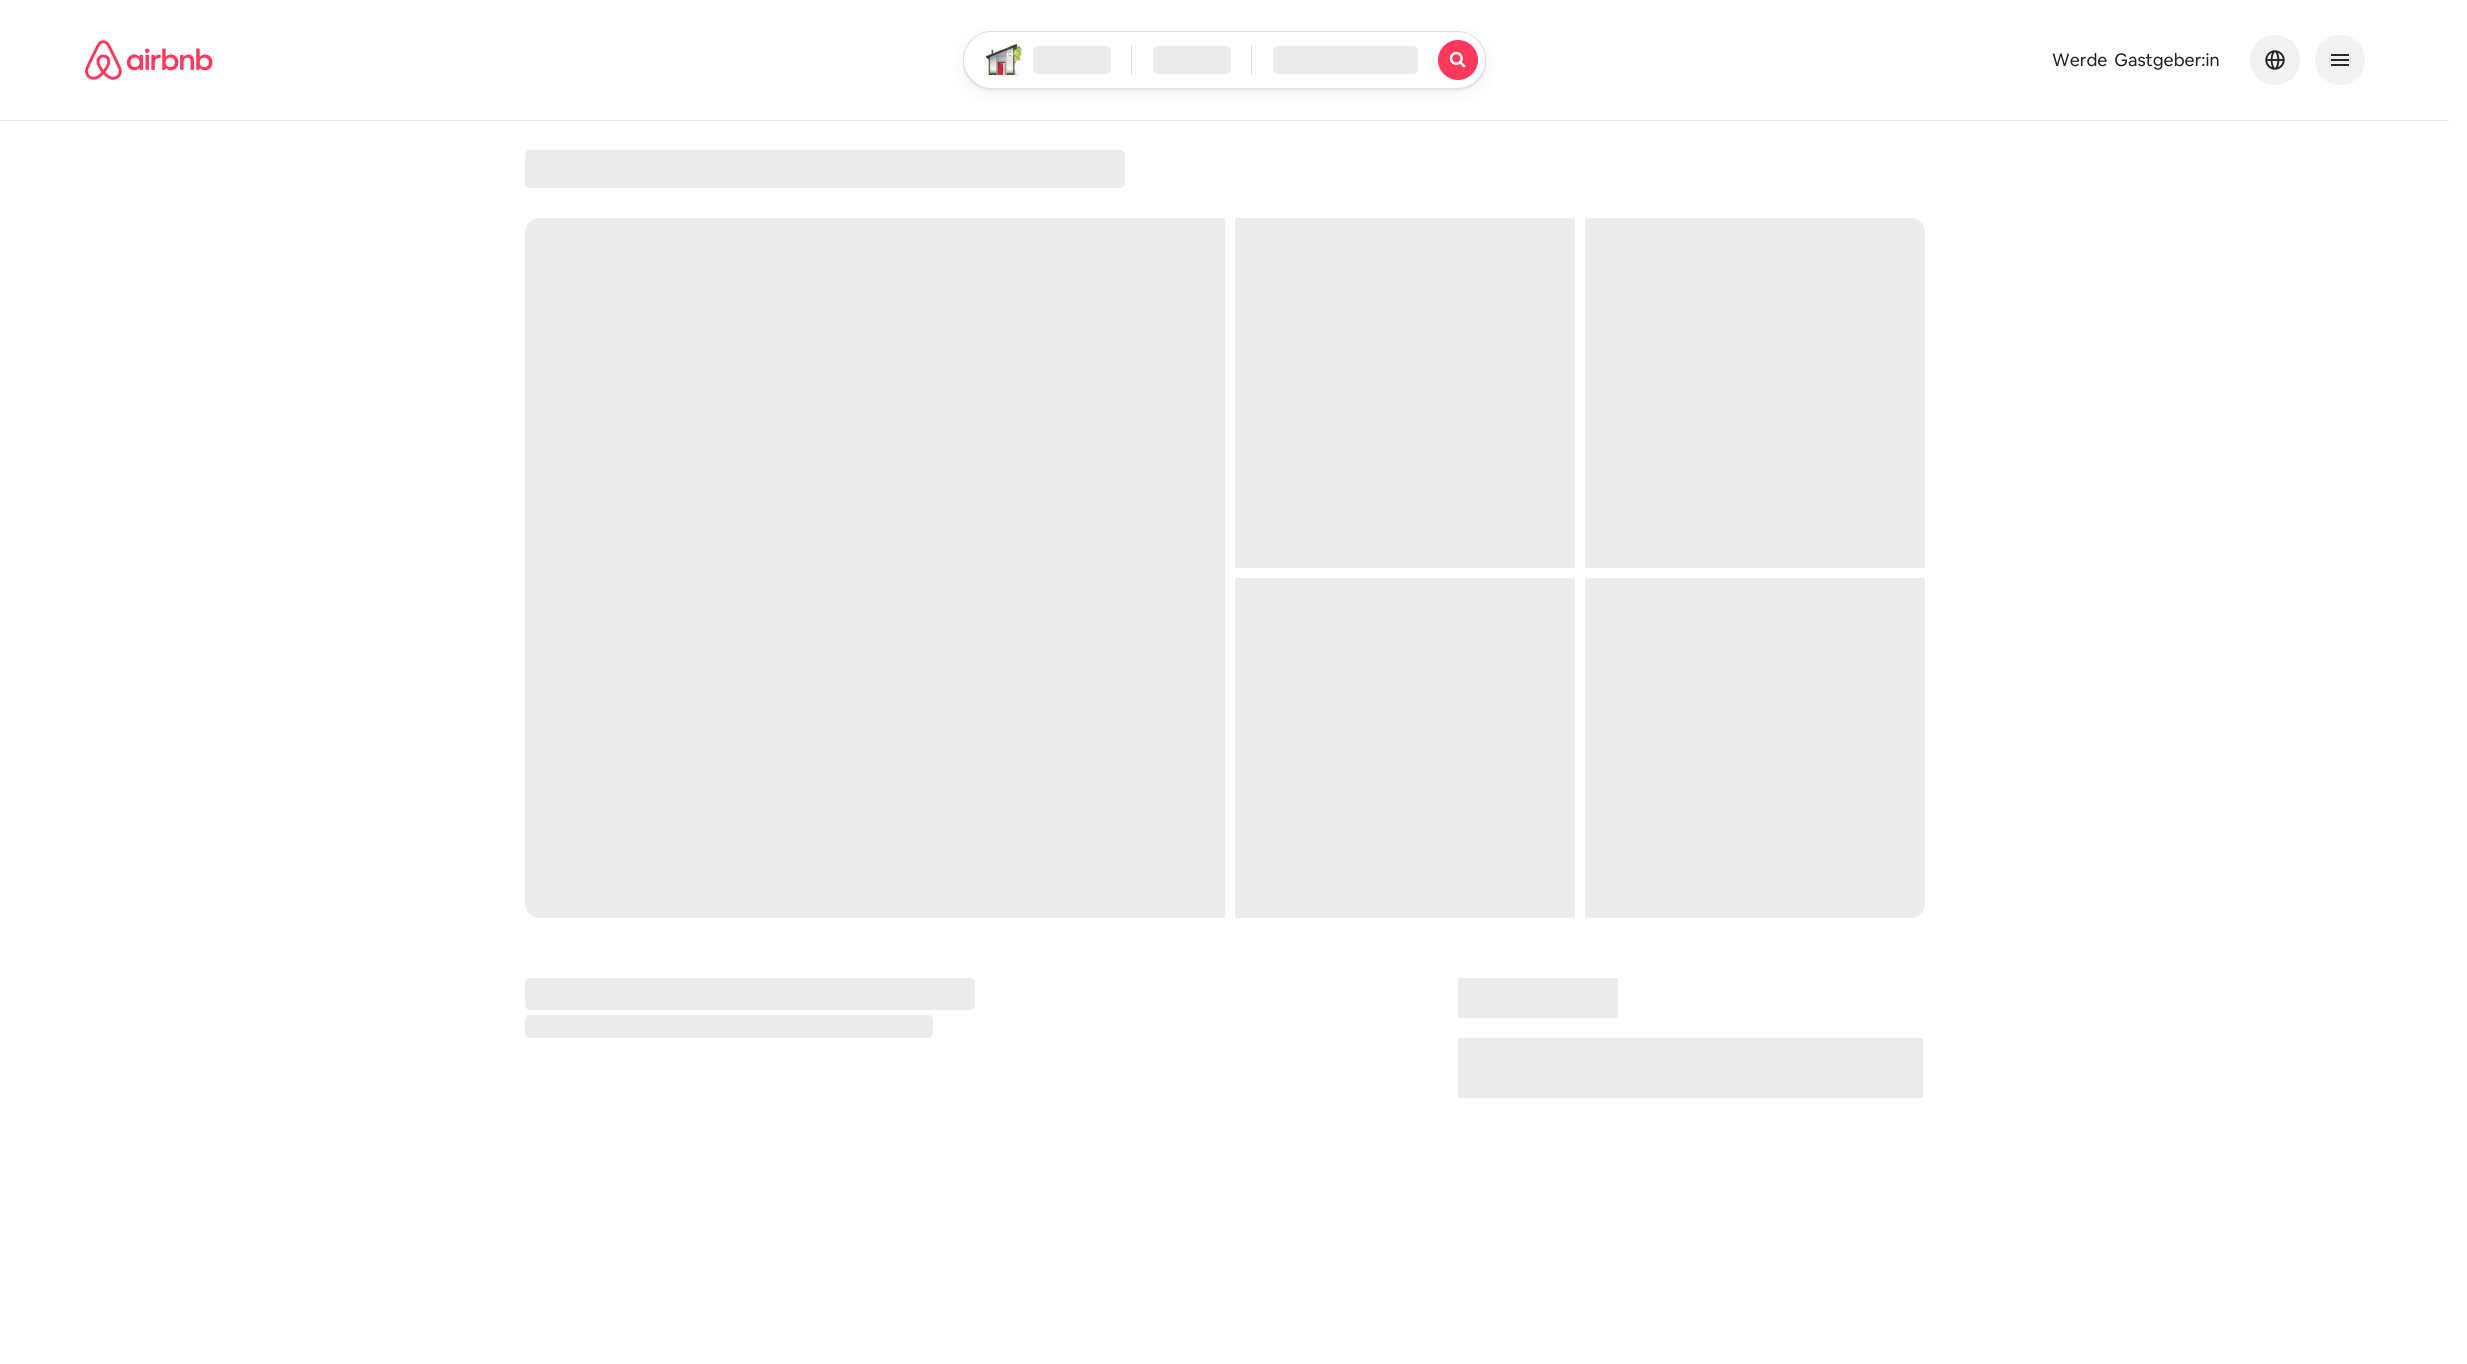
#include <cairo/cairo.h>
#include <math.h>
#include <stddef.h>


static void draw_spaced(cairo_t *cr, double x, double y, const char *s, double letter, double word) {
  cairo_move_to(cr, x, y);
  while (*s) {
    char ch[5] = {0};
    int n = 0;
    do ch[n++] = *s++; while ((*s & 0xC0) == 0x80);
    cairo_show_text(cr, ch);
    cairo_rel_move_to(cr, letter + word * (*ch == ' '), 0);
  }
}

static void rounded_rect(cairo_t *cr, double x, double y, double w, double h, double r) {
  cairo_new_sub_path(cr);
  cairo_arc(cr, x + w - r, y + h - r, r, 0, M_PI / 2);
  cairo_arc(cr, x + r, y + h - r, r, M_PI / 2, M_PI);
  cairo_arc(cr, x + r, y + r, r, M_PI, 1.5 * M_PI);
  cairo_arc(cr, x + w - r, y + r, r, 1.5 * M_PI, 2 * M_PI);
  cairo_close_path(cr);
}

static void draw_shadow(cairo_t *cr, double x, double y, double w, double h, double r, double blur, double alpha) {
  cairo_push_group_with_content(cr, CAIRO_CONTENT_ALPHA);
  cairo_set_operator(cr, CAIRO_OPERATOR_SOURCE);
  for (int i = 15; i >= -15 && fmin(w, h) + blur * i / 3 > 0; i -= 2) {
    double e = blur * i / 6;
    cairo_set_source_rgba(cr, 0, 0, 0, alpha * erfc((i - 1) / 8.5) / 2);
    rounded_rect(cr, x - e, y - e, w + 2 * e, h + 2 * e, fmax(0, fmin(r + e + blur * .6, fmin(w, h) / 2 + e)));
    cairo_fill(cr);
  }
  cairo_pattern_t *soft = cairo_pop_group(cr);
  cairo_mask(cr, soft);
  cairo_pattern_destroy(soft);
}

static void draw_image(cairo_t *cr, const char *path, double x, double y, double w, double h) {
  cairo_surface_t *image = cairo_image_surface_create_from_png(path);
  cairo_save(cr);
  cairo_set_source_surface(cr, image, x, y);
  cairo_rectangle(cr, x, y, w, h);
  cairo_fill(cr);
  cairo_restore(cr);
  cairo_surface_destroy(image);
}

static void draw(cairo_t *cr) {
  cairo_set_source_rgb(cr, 1, 1, 1);
  cairo_paint(cr);
  cairo_set_source_rgb(cr, 0, 0, 0);
  draw_shadow(cr, 963, 36, 523, 58, 29, 7.5, 0.05);
  draw_shadow(cr, 963, 33, 523, 57, 28.5, 1, 0.08);
  cairo_set_source_rgb(cr, 1, 1, 1);
  rounded_rect(cr, 963.5, 31.5, 522, 57, 28.5);
  cairo_fill_preserve(cr);
  cairo_set_source_rgb(cr, 221 / 255.0, 221 / 255.0, 221 / 255.0);
  cairo_set_line_width(cr, 1);
  cairo_stroke(cr);
  draw_image(cr, "images/1.png", 984, 44, 40, 35);
  cairo_set_source_rgb(cr, 235 / 255.0, 235 / 255.0, 235 / 255.0);
  rounded_rect(cr, 1033, 46, 78, 28, 5);
  cairo_fill(cr);
  cairo_set_source_rgb(cr, 221 / 255.0, 221 / 255.0, 221 / 255.0);
  cairo_rectangle(cr, 1131, 45, 1, 30);
  cairo_fill(cr);
  cairo_set_source_rgb(cr, 235 / 255.0, 235 / 255.0, 235 / 255.0);
  rounded_rect(cr, 1153, 46, 78, 28, 5);
  cairo_fill(cr);
  cairo_set_source_rgb(cr, 221 / 255.0, 221 / 255.0, 221 / 255.0);
  cairo_rectangle(cr, 1251, 45, 1, 30);
  cairo_fill(cr);
  cairo_set_source_rgb(cr, 235 / 255.0, 235 / 255.0, 235 / 255.0);
  rounded_rect(cr, 1273, 46, 145, 28, 5);
  cairo_fill(cr);
  cairo_set_source_rgb(cr, 1, 56 / 255.0, 92 / 255.0);
  cairo_arc(cr, 1458, 60, 20, 0, 2 * M_PI);
  cairo_fill(cr);
  draw_image(cr, "images/2.png", 1449, 51, 17, 17);
  cairo_set_source_rgb(cr, 235 / 255.0, 235 / 255.0, 235 / 255.0);
  cairo_rectangle(cr, 0, 120, 2449, 1);
  cairo_fill(cr);
  draw_image(cr, "images/3.png", 85, 40, 128, 40);
  cairo_set_source_rgb(cr, 242 / 255.0, 242 / 255.0, 242 / 255.0);
  cairo_arc(cr, 2275, 60, 25, 0, 2 * M_PI);
  cairo_fill(cr);
  draw_image(cr, "images/4.png", 2265, 50, 20, 20);
  cairo_arc(cr, 2340, 60, 25, 0, 2 * M_PI);
  cairo_fill(cr);
  cairo_new_path(cr);
  cairo_move_to(cr, 2331, 60);
  cairo_line_to(cr, 2349, 60);
  cairo_move_to(cr, 2331, 65);
  cairo_line_to(cr, 2349, 65);
  cairo_move_to(cr, 2331, 55);
  cairo_line_to(cr, 2349, 55);
  cairo_set_source_rgb(cr, 34 / 255.0, 34 / 255.0, 34 / 255.0);
  cairo_set_line_width(cr, 1.9);
  cairo_stroke(cr);
  cairo_set_source_rgb(cr, 235 / 255.0, 235 / 255.0, 235 / 255.0);
  rounded_rect(cr, 525, 150, 600, 38, 5);
  cairo_fill(cr);
  cairo_new_path(cr);
  cairo_move_to(cr, 540, 218);
  cairo_line_to(cr, 1225, 218);
  cairo_line_to(cr, 1225, 918);
  cairo_line_to(cr, 540, 918);
  cairo_curve_to(cr, 531.5, 918, 525, 911.5, 525, 903);
  cairo_line_to(cr, 525, 233);
  cairo_curve_to(cr, 525, 224.5, 531.5, 218, 540, 218);
  cairo_close_path(cr);
  cairo_fill(cr);
  cairo_rectangle(cr, 1235, 218, 340, 350);
  cairo_fill(cr);
  cairo_rectangle(cr, 1235, 578, 340, 340);
  cairo_fill(cr);
  cairo_new_path(cr);
  cairo_move_to(cr, 1585, 218);
  cairo_line_to(cr, 1910, 218);
  cairo_curve_to(cr, 1918.5, 218, 1925, 224.5, 1925, 233);
  cairo_line_to(cr, 1925, 568);
  cairo_line_to(cr, 1585, 568);
  cairo_close_path(cr);
  cairo_fill(cr);
  cairo_new_path(cr);
  cairo_move_to(cr, 1585, 578);
  cairo_line_to(cr, 1925, 578);
  cairo_line_to(cr, 1925, 903);
  cairo_curve_to(cr, 1925, 911.5, 1918.5, 918, 1910, 918);
  cairo_line_to(cr, 1585, 918);
  cairo_close_path(cr);
  cairo_fill(cr);
  rounded_rect(cr, 525, 978, 450, 32, 5);
  cairo_fill(cr);
  rounded_rect(cr, 525, 1015, 408, 23, 5);
  cairo_fill(cr);
  cairo_rectangle(cr, 1458, 978, 160, 40);
  cairo_fill(cr);
  cairo_rectangle(cr, 1458, 1038, 465, 60);
  cairo_fill(cr);
  cairo_select_font_face(cr, "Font", CAIRO_FONT_SLANT_NORMAL, CAIRO_FONT_WEIGHT_NORMAL);
  cairo_set_font_size(cr, 17.5);
  cairo_set_source_rgb(cr, 34 / 255.0, 34 / 255.0, 34 / 255.0);
  draw_spaced(cr, 2052, 66, "Werde Gastgeber:in", 0, 3);
}

int main(void) {
  cairo_surface_t *surface = cairo_image_surface_create(CAIRO_FORMAT_RGB24, 2467, 1364);
  cairo_t *cr = cairo_create(surface);
  cairo_font_options_t *options = cairo_font_options_create();
  cairo_font_options_set_hint_metrics(options, CAIRO_HINT_METRICS_OFF);
  cairo_font_options_set_hint_style(options, CAIRO_HINT_STYLE_NONE);
  cairo_set_font_options(cr, options);
  cairo_set_miter_limit(cr, 4);
  draw(cr);
  cairo_surface_write_to_png(surface, "out.png");
  cairo_font_options_destroy(options);
  cairo_destroy(cr);
  cairo_surface_destroy(surface);
  return 0;
}
